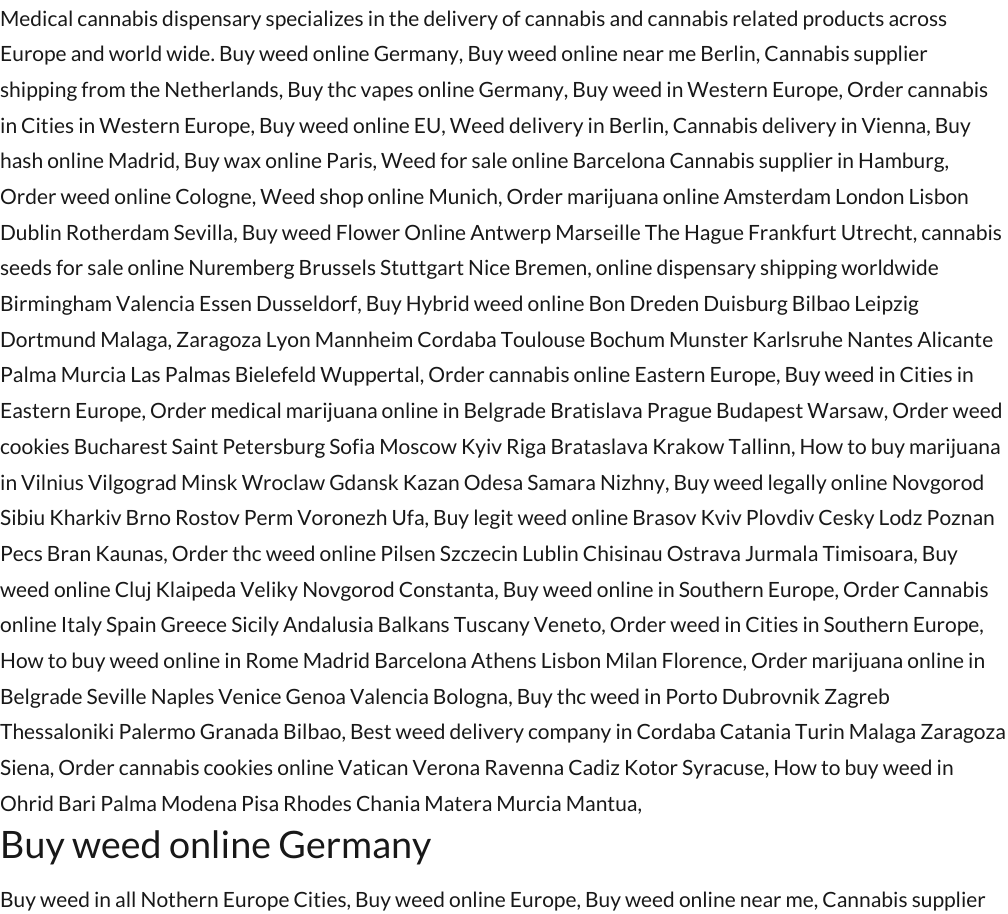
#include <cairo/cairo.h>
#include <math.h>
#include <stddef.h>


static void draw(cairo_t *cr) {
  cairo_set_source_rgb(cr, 1, 1, 1);
  cairo_paint(cr);
  cairo_select_font_face(cr, "Lato", CAIRO_FONT_SLANT_NORMAL, CAIRO_FONT_WEIGHT_NORMAL);
  cairo_set_font_size(cr, 21);
  cairo_set_source_rgb(cr, 24 / 255.0, 24 / 255.0, 24 / 255.0);
  cairo_move_to(cr, 0, 26);
  cairo_show_text(cr, "Medical cannabis dispensary specializes in the delivery of cannabis and cannabis related products across");
  cairo_move_to(cr, 0, 61);
  cairo_show_text(cr, "Europe and world wide. Buy weed online Germany, Buy weed online near me Berlin, Cannabis supplier");
  cairo_move_to(cr, 0, 97);
  cairo_show_text(cr, "shipping from the Netherlands, Buy thc vapes online Germany, Buy weed in Western Europe, Order cannabis");
  cairo_move_to(cr, 0, 133);
  cairo_show_text(cr, "in Cities in Western Europe, Buy weed online EU, Weed delivery in Berlin, Cannabis delivery in Vienna, Buy");
  cairo_move_to(cr, 0, 168);
  cairo_show_text(cr, "hash online Madrid, Buy wax online Paris, Weed for sale online Barcelona Cannabis supplier in Hamburg,");
  cairo_move_to(cr, 0, 204);
  cairo_show_text(cr, "Order weed online Cologne, Weed shop online Munich, Order marijuana online Amsterdam London Lisbon");
  cairo_move_to(cr, 0, 240);
  cairo_show_text(cr, "Dublin Rotherdam Sevilla, Buy weed Flower Online Antwerp Marseille The Hague Frankfurt Utrecht, cannabis");
  cairo_move_to(cr, 0, 275);
  cairo_show_text(cr, "seeds for sale online Nuremberg Brussels Stuttgart Nice Bremen, online dispensary shipping worldwide");
  cairo_move_to(cr, 0, 311);
  cairo_show_text(cr, "Birmingham Valencia Essen Dusseldorf, Buy Hybrid weed online Bon Dreden Duisburg Bilbao Leipzig");
  cairo_move_to(cr, 0, 347);
  cairo_show_text(cr, "Dortmund Malaga, Zaragoza Lyon Mannheim Cordaba Toulouse Bochum Munster Karlsruhe Nantes Alicante");
  cairo_move_to(cr, 0, 382);
  cairo_show_text(cr, "Palma Murcia Las Palmas Bielefeld Wuppertal, Order cannabis online Eastern Europe, Buy weed in Cities in");
  cairo_move_to(cr, 0, 418);
  cairo_show_text(cr, "Eastern Europe, Order medical marijuana online in Belgrade Bratislava Prague Budapest Warsaw, Order weed");
  cairo_move_to(cr, 0, 454);
  cairo_show_text(cr, "cookies Bucharest Saint Petersburg Sofia Moscow Kyiv Riga Brataslava Krakow Tallinn, How to buy marijuana");
  cairo_move_to(cr, 0, 490);
  cairo_show_text(cr, "in Vilnius Vilgograd Minsk Wroclaw Gdansk Kazan Odesa Samara Nizhny, Buy weed legally online Novgorod");
  cairo_move_to(cr, 0, 525);
  cairo_show_text(cr, "Sibiu Kharkiv Brno Rostov Perm Voronezh Ufa, Buy legit weed online Brasov Kviv Plovdiv Cesky Lodz Poznan");
  cairo_move_to(cr, 0, 561);
  cairo_show_text(cr, "Pecs Bran Kaunas, Order thc weed online Pilsen Szczecin Lublin Chisinau Ostrava Jurmala Timisoara, Buy");
  cairo_move_to(cr, 0, 597);
  cairo_show_text(cr, "weed online Cluj Klaipeda Veliky Novgorod Constanta, Buy weed online in Southern Europe, Order Cannabis");
  cairo_move_to(cr, 0, 632);
  cairo_show_text(cr, "online Italy Spain Greece Sicily Andalusia Balkans Tuscany Veneto, Order weed in Cities in Southern Europe,");
  cairo_move_to(cr, 0, 668);
  cairo_show_text(cr, "How to buy weed online in Rome Madrid Barcelona Athens Lisbon Milan Florence, Order marijuana online in");
  cairo_move_to(cr, 0, 704);
  cairo_show_text(cr, "Belgrade Seville Naples Venice Genoa Valencia Bologna, Buy thc weed in Porto Dubrovnik Zagreb");
  cairo_move_to(cr, 0, 739);
  cairo_show_text(cr, "Thessaloniki Palermo Granada Bilbao, Best weed delivery company in Cordaba Catania Turin Malaga Zaragoza");
  cairo_move_to(cr, 0, 775);
  cairo_show_text(cr, "Siena, Order cannabis cookies online Vatican Verona Ravenna Cadiz Kotor Syracuse, How to buy weed in");
  cairo_move_to(cr, 0, 811);
  cairo_show_text(cr, "Ohrid Bari Palma Modena Pisa Rhodes Chania Matera Murcia Mantua,");
  cairo_set_font_size(cr, 37.75);
  cairo_move_to(cr, 0, 858);
  cairo_show_text(cr, "Buy weed online Germany");
  cairo_set_font_size(cr, 21);
  cairo_move_to(cr, 0, 907);
  cairo_show_text(cr, "Buy weed in all Nothern Europe Cities, Buy weed online Europe, Buy weed online near me, Cannabis supplier");
}

int main(void) {
  cairo_surface_t *surface = cairo_image_surface_create(CAIRO_FORMAT_RGB24, 1008, 914);
  cairo_t *cr = cairo_create(surface);
  cairo_font_options_t *options = cairo_font_options_create();
  cairo_font_options_set_hint_metrics(options, CAIRO_HINT_METRICS_OFF);
  cairo_font_options_set_hint_style(options, CAIRO_HINT_STYLE_NONE);
  cairo_set_font_options(cr, options);
  cairo_set_miter_limit(cr, 4);
  draw(cr);
  cairo_surface_write_to_png(surface, "out.png");
  cairo_font_options_destroy(options);
  cairo_destroy(cr);
  cairo_surface_destroy(surface);
  return 0;
}
